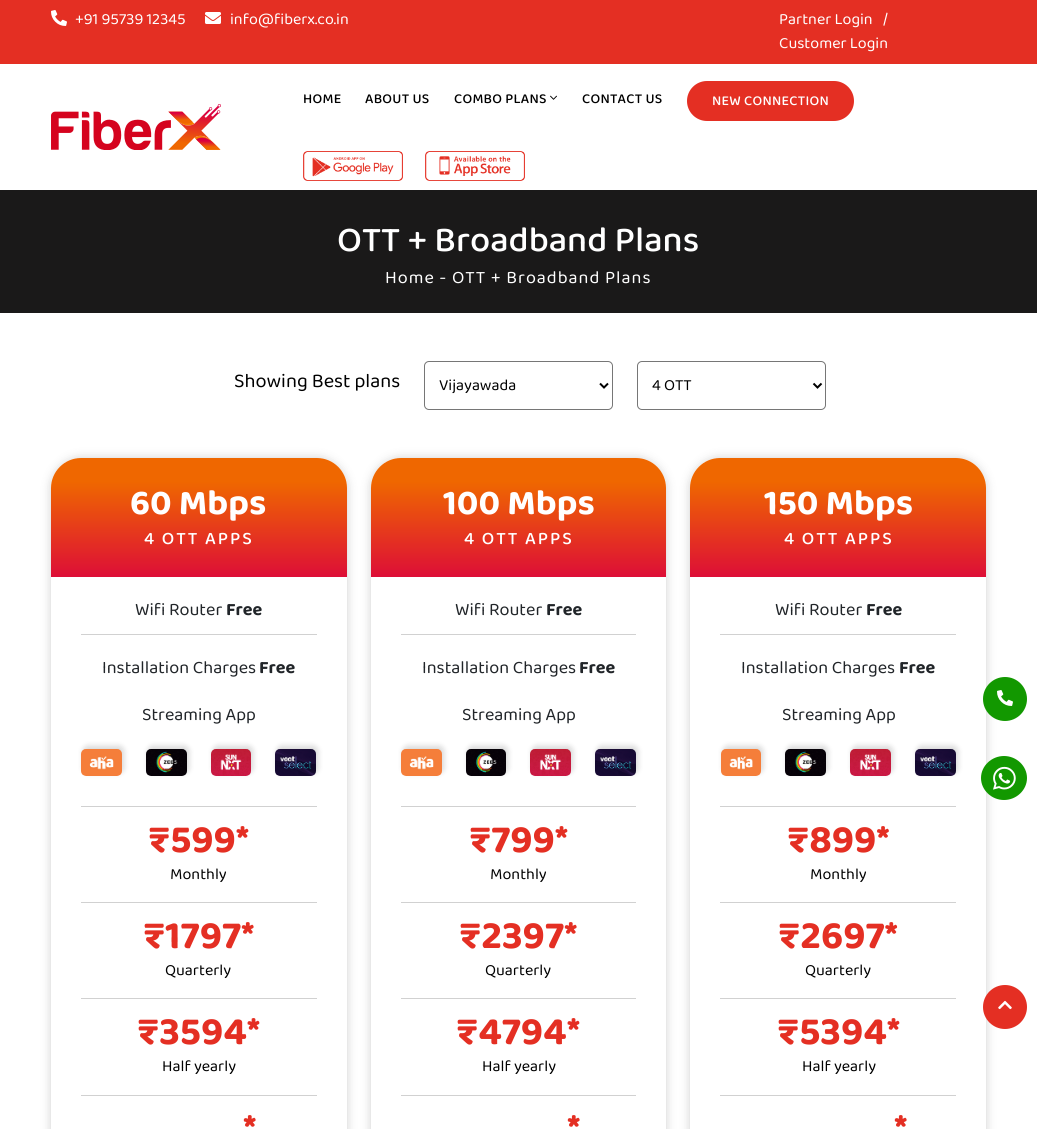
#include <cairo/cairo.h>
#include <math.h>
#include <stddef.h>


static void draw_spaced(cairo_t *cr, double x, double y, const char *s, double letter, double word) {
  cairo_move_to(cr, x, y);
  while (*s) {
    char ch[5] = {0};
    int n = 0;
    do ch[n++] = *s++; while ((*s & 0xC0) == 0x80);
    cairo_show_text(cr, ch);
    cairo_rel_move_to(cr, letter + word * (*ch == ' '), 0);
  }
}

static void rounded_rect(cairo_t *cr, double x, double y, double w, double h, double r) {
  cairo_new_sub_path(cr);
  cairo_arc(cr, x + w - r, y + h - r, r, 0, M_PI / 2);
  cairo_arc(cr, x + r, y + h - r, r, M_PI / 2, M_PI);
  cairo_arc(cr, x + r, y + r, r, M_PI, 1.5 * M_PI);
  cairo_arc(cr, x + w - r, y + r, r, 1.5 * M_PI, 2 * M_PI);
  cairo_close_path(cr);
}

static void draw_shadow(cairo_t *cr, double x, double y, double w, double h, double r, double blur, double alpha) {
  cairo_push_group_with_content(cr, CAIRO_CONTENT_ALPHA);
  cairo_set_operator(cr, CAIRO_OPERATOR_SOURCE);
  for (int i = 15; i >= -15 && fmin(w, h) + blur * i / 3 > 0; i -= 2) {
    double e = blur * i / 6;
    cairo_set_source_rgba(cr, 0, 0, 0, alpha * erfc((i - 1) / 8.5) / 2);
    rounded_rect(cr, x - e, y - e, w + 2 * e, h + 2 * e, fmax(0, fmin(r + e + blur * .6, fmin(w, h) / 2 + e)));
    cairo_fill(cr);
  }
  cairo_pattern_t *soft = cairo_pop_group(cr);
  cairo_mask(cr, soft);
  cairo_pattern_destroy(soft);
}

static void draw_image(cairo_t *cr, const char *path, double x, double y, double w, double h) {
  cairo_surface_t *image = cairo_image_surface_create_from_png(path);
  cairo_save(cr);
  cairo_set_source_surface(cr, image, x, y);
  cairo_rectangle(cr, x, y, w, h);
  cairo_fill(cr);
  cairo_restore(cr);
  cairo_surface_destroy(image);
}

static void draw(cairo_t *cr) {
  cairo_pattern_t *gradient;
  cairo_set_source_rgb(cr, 1, 1, 1);
  cairo_paint(cr);
  cairo_set_source_rgb(cr, 228 / 255.0, 47 / 255.0, 35 / 255.0);
  cairo_rectangle(cr, 0, 0, 1037, 64);
  cairo_fill(cr);
  draw_image(cr, "images/1.png", 51, 10, 16, 16);
  draw_image(cr, "images/2.png", 205, 12, 16, 12);
  draw_image(cr, "images/3.png", 550, 95, 7, 5);
  rounded_rect(cr, 687, 81, 167, 40, 20);
  cairo_fill(cr);
  draw_image(cr, "images/4.png", 303, 151, 100, 30);
  draw_image(cr, "images/5.png", 425, 151, 100, 30);
  draw_image(cr, "images/6.png", 51, 104, 170, 46);
  cairo_set_source_rgb(cr, 26 / 255.0, 25 / 255.0, 25 / 255.0);
  cairo_rectangle(cr, 0, 190, 1037, 123);
  cairo_fill(cr);
  rounded_rect(cr, 424.5, 361.5, 188, 48, 4.5);
  cairo_set_source_rgb(cr, 118 / 255.0, 118 / 255.0, 118 / 255.0);
  cairo_set_line_width(cr, 1);
  cairo_stroke(cr);
  cairo_new_path(cr);
  cairo_move_to(cr, 600, 383.5);
  cairo_line_to(cr, 604, 387.5);
  cairo_line_to(cr, 608, 383.5);
  cairo_set_source_rgb(cr, 0, 0, 0);
  cairo_set_line_width(cr, 2);
  cairo_stroke(cr);
  rounded_rect(cr, 637.5, 361.5, 188, 48, 4.5);
  cairo_set_source_rgb(cr, 118 / 255.0, 118 / 255.0, 118 / 255.0);
  cairo_set_line_width(cr, 1);
  cairo_stroke(cr);
  cairo_new_path(cr);
  cairo_move_to(cr, 813.5, 383.5);
  cairo_line_to(cr, 817.5, 387.5);
  cairo_line_to(cr, 821.5, 383.5);
  cairo_set_source_rgb(cr, 0, 0, 0);
  cairo_set_line_width(cr, 2);
  cairo_stroke(cr);
  cairo_set_source_rgb(cr, 0, 0, 0);
  draw_shadow(cr, 51, 458, 296, 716, 30, 5, 0.19);
  cairo_set_source_rgb(cr, 1, 1, 1);
  rounded_rect(cr, 51, 458, 296, 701, 30);
  cairo_fill(cr);
  gradient = cairo_pattern_create_linear(199, 577, 199, 458);
  cairo_pattern_add_color_stop_rgba(gradient, 0, 221 / 255.0, 14 / 255.0, 55 / 255.0, 1);
  cairo_pattern_add_color_stop_rgba(gradient, 0.8, 239 / 255.0, 103 / 255.0, 0, 1);
  cairo_set_source(cr, gradient);
  cairo_pattern_destroy(gradient);
  cairo_new_path(cr);
  cairo_move_to(cr, 81, 458);
  cairo_line_to(cr, 317, 458);
  cairo_curve_to(cr, 333.5, 458, 347, 471.5, 347, 488);
  cairo_line_to(cr, 347, 577);
  cairo_line_to(cr, 51, 577);
  cairo_line_to(cr, 51, 488);
  cairo_curve_to(cr, 51, 471.5, 64.5, 458, 81, 458);
  cairo_close_path(cr);
  cairo_fill(cr);
  cairo_set_source_rgb(cr, 209 / 255.0, 209 / 255.0, 209 / 255.0);
  cairo_rectangle(cr, 81, 634, 236, 1);
  cairo_fill(cr);
  cairo_rectangle(cr, 81, 806, 236, 1);
  cairo_fill(cr);
  cairo_set_source_rgb(cr, 0, 0, 0);
  draw_shadow(cr, 83, 746, 41, 27, 5, 3, 0.16);
  draw_image(cr, "images/7.png", 81, 749, 41, 27);
  draw_shadow(cr, 148, 746, 41, 27, 5, 3, 0.16);
  draw_image(cr, "images/8.png", 146, 749, 41, 27);
  draw_shadow(cr, 213, 746, 40, 27, 5, 3, 0.16);
  draw_image(cr, "images/9.png", 211, 749, 40, 27);
  draw_shadow(cr, 277, 746, 41, 27, 5, 3, 0.16);
  draw_image(cr, "images/10.png", 275, 749, 41, 27);
  cairo_set_source_rgb(cr, 209 / 255.0, 209 / 255.0, 209 / 255.0);
  cairo_rectangle(cr, 81, 902, 236, 1);
  cairo_fill(cr);
  cairo_rectangle(cr, 81, 998, 236, 1);
  cairo_fill(cr);
  cairo_rectangle(cr, 81, 1095, 236, 1);
  cairo_fill(cr);
  cairo_set_source_rgb(cr, 0, 0, 0);
  draw_shadow(cr, 371, 458, 295, 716, 30, 5, 0.19);
  cairo_set_source_rgb(cr, 1, 1, 1);
  rounded_rect(cr, 371, 458, 295, 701, 30);
  cairo_fill(cr);
  gradient = cairo_pattern_create_linear(519, 577, 519, 458);
  cairo_pattern_add_color_stop_rgba(gradient, 0, 221 / 255.0, 14 / 255.0, 55 / 255.0, 1);
  cairo_pattern_add_color_stop_rgba(gradient, 0.8, 239 / 255.0, 103 / 255.0, 0, 1);
  cairo_set_source(cr, gradient);
  cairo_pattern_destroy(gradient);
  cairo_new_path(cr);
  cairo_move_to(cr, 401, 458);
  cairo_line_to(cr, 636, 458);
  cairo_curve_to(cr, 652.5, 458, 666, 471.5, 666, 488);
  cairo_line_to(cr, 666, 577);
  cairo_line_to(cr, 371, 577);
  cairo_line_to(cr, 371, 488);
  cairo_curve_to(cr, 371, 471.5, 384.5, 458, 401, 458);
  cairo_close_path(cr);
  cairo_fill(cr);
  cairo_set_source_rgb(cr, 209 / 255.0, 209 / 255.0, 209 / 255.0);
  cairo_rectangle(cr, 401, 634, 235, 1);
  cairo_fill(cr);
  cairo_rectangle(cr, 401, 806, 235, 1);
  cairo_fill(cr);
  cairo_set_source_rgb(cr, 0, 0, 0);
  draw_shadow(cr, 403, 746, 41, 27, 5, 3, 0.16);
  draw_image(cr, "images/7.png", 401, 749, 41, 27);
  draw_shadow(cr, 468, 746, 40, 27, 5, 3, 0.16);
  draw_image(cr, "images/11.png", 466, 749, 40, 27);
  draw_shadow(cr, 532, 746, 41, 27, 5, 3, 0.16);
  draw_image(cr, "images/12.png", 530, 749, 41, 27);
  draw_shadow(cr, 597, 746, 41, 27, 5, 3, 0.16);
  draw_image(cr, "images/10.png", 595, 749, 41, 27);
  cairo_set_source_rgb(cr, 209 / 255.0, 209 / 255.0, 209 / 255.0);
  cairo_rectangle(cr, 401, 902, 235, 1);
  cairo_fill(cr);
  cairo_rectangle(cr, 401, 998, 235, 1);
  cairo_fill(cr);
  cairo_rectangle(cr, 401, 1095, 235, 1);
  cairo_fill(cr);
  cairo_set_source_rgb(cr, 0, 0, 0);
  draw_shadow(cr, 690, 458, 296, 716, 30, 5, 0.19);
  cairo_set_source_rgb(cr, 1, 1, 1);
  rounded_rect(cr, 690, 458, 296, 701, 30);
  cairo_fill(cr);
  gradient = cairo_pattern_create_linear(838, 577, 838, 458);
  cairo_pattern_add_color_stop_rgba(gradient, 0, 221 / 255.0, 14 / 255.0, 55 / 255.0, 1);
  cairo_pattern_add_color_stop_rgba(gradient, 0.8, 239 / 255.0, 103 / 255.0, 0, 1);
  cairo_set_source(cr, gradient);
  cairo_pattern_destroy(gradient);
  cairo_new_path(cr);
  cairo_move_to(cr, 720, 458);
  cairo_line_to(cr, 956, 458);
  cairo_curve_to(cr, 972.5, 458, 986, 471.5, 986, 488);
  cairo_line_to(cr, 986, 577);
  cairo_line_to(cr, 690, 577);
  cairo_line_to(cr, 690, 488);
  cairo_curve_to(cr, 690, 471.5, 703.5, 458, 720, 458);
  cairo_close_path(cr);
  cairo_fill(cr);
  cairo_set_source_rgb(cr, 209 / 255.0, 209 / 255.0, 209 / 255.0);
  cairo_rectangle(cr, 720, 634, 236, 1);
  cairo_fill(cr);
  cairo_rectangle(cr, 720, 806, 236, 1);
  cairo_fill(cr);
  cairo_set_source_rgb(cr, 0, 0, 0);
  draw_shadow(cr, 723, 746, 40, 27, 5, 3, 0.16);
  draw_image(cr, "images/13.png", 721, 749, 40, 27);
  draw_shadow(cr, 787, 746, 41, 27, 5, 3, 0.16);
  draw_image(cr, "images/14.png", 785, 749, 41, 27);
  draw_shadow(cr, 852, 746, 41, 27, 5, 3, 0.16);
  draw_image(cr, "images/12.png", 850, 749, 41, 27);
  draw_shadow(cr, 917, 746, 41, 27, 5, 3, 0.16);
  draw_image(cr, "images/10.png", 915, 749, 41, 27);
  cairo_set_source_rgb(cr, 209 / 255.0, 209 / 255.0, 209 / 255.0);
  cairo_rectangle(cr, 720, 902, 236, 1);
  cairo_fill(cr);
  cairo_rectangle(cr, 720, 998, 236, 1);
  cairo_fill(cr);
  cairo_rectangle(cr, 720, 1095, 236, 1);
  cairo_fill(cr);
  cairo_set_source_rgb(cr, 18 / 255.0, 152 / 255.0, 0);
  cairo_arc(cr, 1005, 699, 22, 0, 2 * M_PI);
  cairo_fill(cr);
  draw_image(cr, "images/15.png", 997, 690, 16, 16);
  cairo_new_path(cr);
  cairo_move_to(cr, 1004, 756);
  cairo_curve_to(cr, 1016.5, 756, 1027, 766, 1027, 778);
  cairo_curve_to(cr, 1027, 790, 1016.5, 800, 1004, 800);
  cairo_curve_to(cr, 991.5, 800, 981, 790, 981, 778);
  cairo_curve_to(cr, 981, 766, 991.5, 756, 1004, 756);
  cairo_close_path(cr);
  cairo_fill(cr);
  draw_image(cr, "images/16.png", 993, 766, 23, 24);
  cairo_set_source_rgb(cr, 228 / 255.0, 47 / 255.0, 35 / 255.0);
  cairo_arc(cr, 1005, 1007, 22, 0, 2 * M_PI);
  cairo_fill(cr);
  draw_image(cr, "images/17.png", 998, 1000, 14, 10);
  cairo_select_font_face(cr, "Baloo 2", CAIRO_FONT_SLANT_NORMAL, CAIRO_FONT_WEIGHT_NORMAL);
  cairo_set_font_size(cr, 16);
  cairo_set_source_rgb(cr, 1, 1, 1);
  cairo_move_to(cr, 75, 24);
  cairo_show_text(cr, "+91 95739 12345");
  cairo_move_to(cr, 230, 24);
  cairo_show_text(cr, "info@fiberx.co.in");
  cairo_move_to(cr, 779, 24);
  cairo_show_text(cr, "Partner Login");
  cairo_move_to(cr, 883, 24);
  cairo_show_text(cr, "/");
  cairo_move_to(cr, 779, 48);
  cairo_show_text(cr, "Customer Login");
  cairo_select_font_face(cr, "Baloo 2 Medium", CAIRO_FONT_SLANT_NORMAL, CAIRO_FONT_WEIGHT_NORMAL);
  cairo_set_font_size(cr, 14);
  cairo_set_source_rgb(cr, 0, 0, 0);
  draw_spaced(cr, 303, 103, "HOME", 0.25, 0);
  draw_spaced(cr, 365, 103, "ABOUT US", 0.25, 0);
  draw_spaced(cr, 454, 103, "COMBO PLANS", 0.25, 0);
  draw_spaced(cr, 582, 103, "CONTACT US", 0.25, 0);
  cairo_set_source_rgb(cr, 1, 1, 1);
  draw_spaced(cr, 712, 105, "NEW CONNECTION", 0.25, 0);
  cairo_set_font_size(cr, 36);
  cairo_move_to(cr, 337, 251);
  cairo_show_text(cr, "OTT + Broadband Plans");
  cairo_select_font_face(cr, "Baloo 2", CAIRO_FONT_SLANT_NORMAL, CAIRO_FONT_WEIGHT_NORMAL);
  cairo_set_font_size(cr, 18);
  draw_spaced(cr, 385, 283, "Home - OTT + Broadband Plans", 1, 0);
  cairo_set_font_size(cr, 20);
  cairo_set_source_rgb(cr, 0, 0, 0);
  cairo_move_to(cr, 234, 387);
  cairo_show_text(cr, "Showing Best plans");
  cairo_set_font_size(cr, 16);
  cairo_move_to(cr, 439, 390);
  cairo_show_text(cr, "Vijayawada");
  cairo_move_to(cr, 652, 390);
  cairo_show_text(cr, "4 OTT");
  cairo_select_font_face(cr, "Baloo 2", CAIRO_FONT_SLANT_NORMAL, CAIRO_FONT_WEIGHT_BOLD);
  cairo_set_font_size(cr, 36);
  cairo_set_source_rgb(cr, 1, 1, 1);
  cairo_move_to(cr, 130, 514);
  cairo_show_text(cr, "60 Mbps");
  cairo_select_font_face(cr, "Baloo 2 Medium", CAIRO_FONT_SLANT_NORMAL, CAIRO_FONT_WEIGHT_NORMAL);
  cairo_set_font_size(cr, 18);
  draw_spaced(cr, 144, 544, "4 OTT APPS", 2, 0);
  cairo_select_font_face(cr, "Baloo 2", CAIRO_FONT_SLANT_NORMAL, CAIRO_FONT_WEIGHT_NORMAL);
  cairo_set_source_rgb(cr, 33 / 255.0, 37 / 255.0, 41 / 255.0);
  cairo_move_to(cr, 135, 615);
  cairo_show_text(cr, "Wifi Router");
  cairo_select_font_face(cr, "Baloo 2", CAIRO_FONT_SLANT_NORMAL, CAIRO_FONT_WEIGHT_BOLD);
  cairo_move_to(cr, 226, 615);
  cairo_show_text(cr, "Free");
  cairo_select_font_face(cr, "Baloo 2", CAIRO_FONT_SLANT_NORMAL, CAIRO_FONT_WEIGHT_NORMAL);
  cairo_move_to(cr, 102, 673);
  cairo_show_text(cr, "Installation Charges");
  cairo_select_font_face(cr, "Baloo 2", CAIRO_FONT_SLANT_NORMAL, CAIRO_FONT_WEIGHT_BOLD);
  cairo_move_to(cr, 259, 673);
  cairo_show_text(cr, "Free");
  cairo_select_font_face(cr, "Baloo 2", CAIRO_FONT_SLANT_NORMAL, CAIRO_FONT_WEIGHT_NORMAL);
  cairo_move_to(cr, 142, 720);
  cairo_show_text(cr, "Streaming App");
  cairo_select_font_face(cr, "Baloo 2", CAIRO_FONT_SLANT_NORMAL, CAIRO_FONT_WEIGHT_BOLD);
  cairo_set_font_size(cr, 40);
  cairo_set_source_rgb(cr, 228 / 255.0, 47 / 255.0, 35 / 255.0);
  cairo_move_to(cr, 148, 852);
  cairo_show_text(cr, "₹599*");
  cairo_select_font_face(cr, "Baloo 2", CAIRO_FONT_SLANT_NORMAL, CAIRO_FONT_WEIGHT_NORMAL);
  cairo_set_font_size(cr, 16);
  cairo_set_source_rgb(cr, 0, 0, 0);
  cairo_move_to(cr, 170, 879);
  cairo_show_text(cr, "Monthly");
  cairo_select_font_face(cr, "Baloo 2", CAIRO_FONT_SLANT_NORMAL, CAIRO_FONT_WEIGHT_BOLD);
  cairo_set_font_size(cr, 40);
  cairo_set_source_rgb(cr, 228 / 255.0, 47 / 255.0, 35 / 255.0);
  cairo_move_to(cr, 143, 948);
  cairo_show_text(cr, "₹1797*");
  cairo_select_font_face(cr, "Baloo 2", CAIRO_FONT_SLANT_NORMAL, CAIRO_FONT_WEIGHT_NORMAL);
  cairo_set_font_size(cr, 16);
  cairo_set_source_rgb(cr, 0, 0, 0);
  cairo_move_to(cr, 165, 975);
  cairo_show_text(cr, "Quarterly");
  cairo_select_font_face(cr, "Baloo 2", CAIRO_FONT_SLANT_NORMAL, CAIRO_FONT_WEIGHT_BOLD);
  cairo_set_font_size(cr, 40);
  cairo_set_source_rgb(cr, 228 / 255.0, 47 / 255.0, 35 / 255.0);
  cairo_move_to(cr, 137, 1044);
  cairo_show_text(cr, "₹3594*");
  cairo_select_font_face(cr, "Baloo 2", CAIRO_FONT_SLANT_NORMAL, CAIRO_FONT_WEIGHT_NORMAL);
  cairo_set_font_size(cr, 16);
  cairo_set_source_rgb(cr, 0, 0, 0);
  cairo_move_to(cr, 162, 1071);
  cairo_show_text(cr, "Half yearly");
  cairo_select_font_face(cr, "Baloo 2", CAIRO_FONT_SLANT_NORMAL, CAIRO_FONT_WEIGHT_BOLD);
  cairo_set_font_size(cr, 40);
  cairo_set_source_rgb(cr, 228 / 255.0, 47 / 255.0, 35 / 255.0);
  cairo_move_to(cr, 243, 1141);
  cairo_show_text(cr, "*");
  cairo_set_font_size(cr, 36);
  cairo_set_source_rgb(cr, 1, 1, 1);
  cairo_move_to(cr, 443, 514);
  cairo_show_text(cr, "100 Mbps");
  cairo_select_font_face(cr, "Baloo 2 Medium", CAIRO_FONT_SLANT_NORMAL, CAIRO_FONT_WEIGHT_NORMAL);
  cairo_set_font_size(cr, 18);
  draw_spaced(cr, 464, 544, "4 OTT APPS", 2, 0);
  cairo_select_font_face(cr, "Baloo 2", CAIRO_FONT_SLANT_NORMAL, CAIRO_FONT_WEIGHT_NORMAL);
  cairo_set_source_rgb(cr, 33 / 255.0, 37 / 255.0, 41 / 255.0);
  cairo_move_to(cr, 455, 615);
  cairo_show_text(cr, "Wifi Router");
  cairo_select_font_face(cr, "Baloo 2", CAIRO_FONT_SLANT_NORMAL, CAIRO_FONT_WEIGHT_BOLD);
  cairo_move_to(cr, 546, 615);
  cairo_show_text(cr, "Free");
  cairo_select_font_face(cr, "Baloo 2", CAIRO_FONT_SLANT_NORMAL, CAIRO_FONT_WEIGHT_NORMAL);
  cairo_move_to(cr, 422, 673);
  cairo_show_text(cr, "Installation Charges");
  cairo_select_font_face(cr, "Baloo 2", CAIRO_FONT_SLANT_NORMAL, CAIRO_FONT_WEIGHT_BOLD);
  cairo_move_to(cr, 579, 673);
  cairo_show_text(cr, "Free");
  cairo_select_font_face(cr, "Baloo 2", CAIRO_FONT_SLANT_NORMAL, CAIRO_FONT_WEIGHT_NORMAL);
  cairo_move_to(cr, 462, 720);
  cairo_show_text(cr, "Streaming App");
  cairo_select_font_face(cr, "Baloo 2", CAIRO_FONT_SLANT_NORMAL, CAIRO_FONT_WEIGHT_BOLD);
  cairo_set_font_size(cr, 40);
  cairo_set_source_rgb(cr, 228 / 255.0, 47 / 255.0, 35 / 255.0);
  cairo_move_to(cr, 469, 852);
  cairo_show_text(cr, "₹799*");
  cairo_select_font_face(cr, "Baloo 2", CAIRO_FONT_SLANT_NORMAL, CAIRO_FONT_WEIGHT_NORMAL);
  cairo_set_font_size(cr, 16);
  cairo_set_source_rgb(cr, 0, 0, 0);
  cairo_move_to(cr, 490, 879);
  cairo_show_text(cr, "Monthly");
  cairo_select_font_face(cr, "Baloo 2", CAIRO_FONT_SLANT_NORMAL, CAIRO_FONT_WEIGHT_BOLD);
  cairo_set_font_size(cr, 40);
  cairo_set_source_rgb(cr, 228 / 255.0, 47 / 255.0, 35 / 255.0);
  cairo_move_to(cr, 459, 948);
  cairo_show_text(cr, "₹2397*");
  cairo_select_font_face(cr, "Baloo 2", CAIRO_FONT_SLANT_NORMAL, CAIRO_FONT_WEIGHT_NORMAL);
  cairo_set_font_size(cr, 16);
  cairo_set_source_rgb(cr, 0, 0, 0);
  cairo_move_to(cr, 485, 975);
  cairo_show_text(cr, "Quarterly");
  cairo_select_font_face(cr, "Baloo 2", CAIRO_FONT_SLANT_NORMAL, CAIRO_FONT_WEIGHT_BOLD);
  cairo_set_font_size(cr, 40);
  cairo_set_source_rgb(cr, 228 / 255.0, 47 / 255.0, 35 / 255.0);
  cairo_move_to(cr, 456, 1044);
  cairo_show_text(cr, "₹4794*");
  cairo_select_font_face(cr, "Baloo 2", CAIRO_FONT_SLANT_NORMAL, CAIRO_FONT_WEIGHT_NORMAL);
  cairo_set_font_size(cr, 16);
  cairo_set_source_rgb(cr, 0, 0, 0);
  cairo_move_to(cr, 482, 1071);
  cairo_show_text(cr, "Half yearly");
  cairo_select_font_face(cr, "Baloo 2", CAIRO_FONT_SLANT_NORMAL, CAIRO_FONT_WEIGHT_BOLD);
  cairo_set_font_size(cr, 40);
  cairo_set_source_rgb(cr, 228 / 255.0, 47 / 255.0, 35 / 255.0);
  cairo_move_to(cr, 567, 1141);
  cairo_show_text(cr, "*");
  cairo_set_font_size(cr, 36);
  cairo_set_source_rgb(cr, 1, 1, 1);
  cairo_move_to(cr, 764, 514);
  cairo_show_text(cr, "150 Mbps");
  cairo_select_font_face(cr, "Baloo 2 Medium", CAIRO_FONT_SLANT_NORMAL, CAIRO_FONT_WEIGHT_NORMAL);
  cairo_set_font_size(cr, 18);
  draw_spaced(cr, 784, 544, "4 OTT APPS", 2, 0);
  cairo_select_font_face(cr, "Baloo 2", CAIRO_FONT_SLANT_NORMAL, CAIRO_FONT_WEIGHT_NORMAL);
  cairo_set_source_rgb(cr, 33 / 255.0, 37 / 255.0, 41 / 255.0);
  cairo_move_to(cr, 775, 615);
  cairo_show_text(cr, "Wifi Router");
  cairo_select_font_face(cr, "Baloo 2", CAIRO_FONT_SLANT_NORMAL, CAIRO_FONT_WEIGHT_BOLD);
  cairo_move_to(cr, 866, 615);
  cairo_show_text(cr, "Free");
  cairo_select_font_face(cr, "Baloo 2", CAIRO_FONT_SLANT_NORMAL, CAIRO_FONT_WEIGHT_NORMAL);
  cairo_move_to(cr, 741, 673);
  cairo_show_text(cr, "Installation Charges");
  cairo_select_font_face(cr, "Baloo 2", CAIRO_FONT_SLANT_NORMAL, CAIRO_FONT_WEIGHT_BOLD);
  cairo_move_to(cr, 899, 673);
  cairo_show_text(cr, "Free");
  cairo_select_font_face(cr, "Baloo 2", CAIRO_FONT_SLANT_NORMAL, CAIRO_FONT_WEIGHT_NORMAL);
  cairo_move_to(cr, 782, 720);
  cairo_show_text(cr, "Streaming App");
  cairo_select_font_face(cr, "Baloo 2", CAIRO_FONT_SLANT_NORMAL, CAIRO_FONT_WEIGHT_BOLD);
  cairo_set_font_size(cr, 40);
  cairo_set_source_rgb(cr, 228 / 255.0, 47 / 255.0, 35 / 255.0);
  cairo_move_to(cr, 787, 852);
  cairo_show_text(cr, "₹899*");
  cairo_select_font_face(cr, "Baloo 2", CAIRO_FONT_SLANT_NORMAL, CAIRO_FONT_WEIGHT_NORMAL);
  cairo_set_font_size(cr, 16);
  cairo_set_source_rgb(cr, 0, 0, 0);
  cairo_move_to(cr, 810, 879);
  cairo_show_text(cr, "Monthly");
  cairo_select_font_face(cr, "Baloo 2", CAIRO_FONT_SLANT_NORMAL, CAIRO_FONT_WEIGHT_BOLD);
  cairo_set_font_size(cr, 40);
  cairo_set_source_rgb(cr, 228 / 255.0, 47 / 255.0, 35 / 255.0);
  cairo_move_to(cr, 778, 948);
  cairo_show_text(cr, "₹2697*");
  cairo_select_font_face(cr, "Baloo 2", CAIRO_FONT_SLANT_NORMAL, CAIRO_FONT_WEIGHT_NORMAL);
  cairo_set_font_size(cr, 16);
  cairo_set_source_rgb(cr, 0, 0, 0);
  cairo_move_to(cr, 805, 975);
  cairo_show_text(cr, "Quarterly");
  cairo_select_font_face(cr, "Baloo 2", CAIRO_FONT_SLANT_NORMAL, CAIRO_FONT_WEIGHT_BOLD);
  cairo_set_font_size(cr, 40);
  cairo_set_source_rgb(cr, 228 / 255.0, 47 / 255.0, 35 / 255.0);
  cairo_move_to(cr, 777, 1044);
  cairo_show_text(cr, "₹5394*");
  cairo_select_font_face(cr, "Baloo 2", CAIRO_FONT_SLANT_NORMAL, CAIRO_FONT_WEIGHT_NORMAL);
  cairo_set_font_size(cr, 16);
  cairo_set_source_rgb(cr, 0, 0, 0);
  cairo_move_to(cr, 802, 1071);
  cairo_show_text(cr, "Half yearly");
  cairo_select_font_face(cr, "Baloo 2", CAIRO_FONT_SLANT_NORMAL, CAIRO_FONT_WEIGHT_BOLD);
  cairo_set_font_size(cr, 40);
  cairo_set_source_rgb(cr, 228 / 255.0, 47 / 255.0, 35 / 255.0);
  cairo_move_to(cr, 894, 1141);
  cairo_show_text(cr, "*");
}

int main(void) {
  cairo_surface_t *surface = cairo_image_surface_create(CAIRO_FORMAT_RGB24, 1037, 1129);
  cairo_t *cr = cairo_create(surface);
  cairo_font_options_t *options = cairo_font_options_create();
  cairo_font_options_set_hint_metrics(options, CAIRO_HINT_METRICS_OFF);
  cairo_font_options_set_hint_style(options, CAIRO_HINT_STYLE_NONE);
  cairo_set_font_options(cr, options);
  cairo_set_miter_limit(cr, 4);
  draw(cr);
  cairo_surface_write_to_png(surface, "out.png");
  cairo_font_options_destroy(options);
  cairo_destroy(cr);
  cairo_surface_destroy(surface);
  return 0;
}
